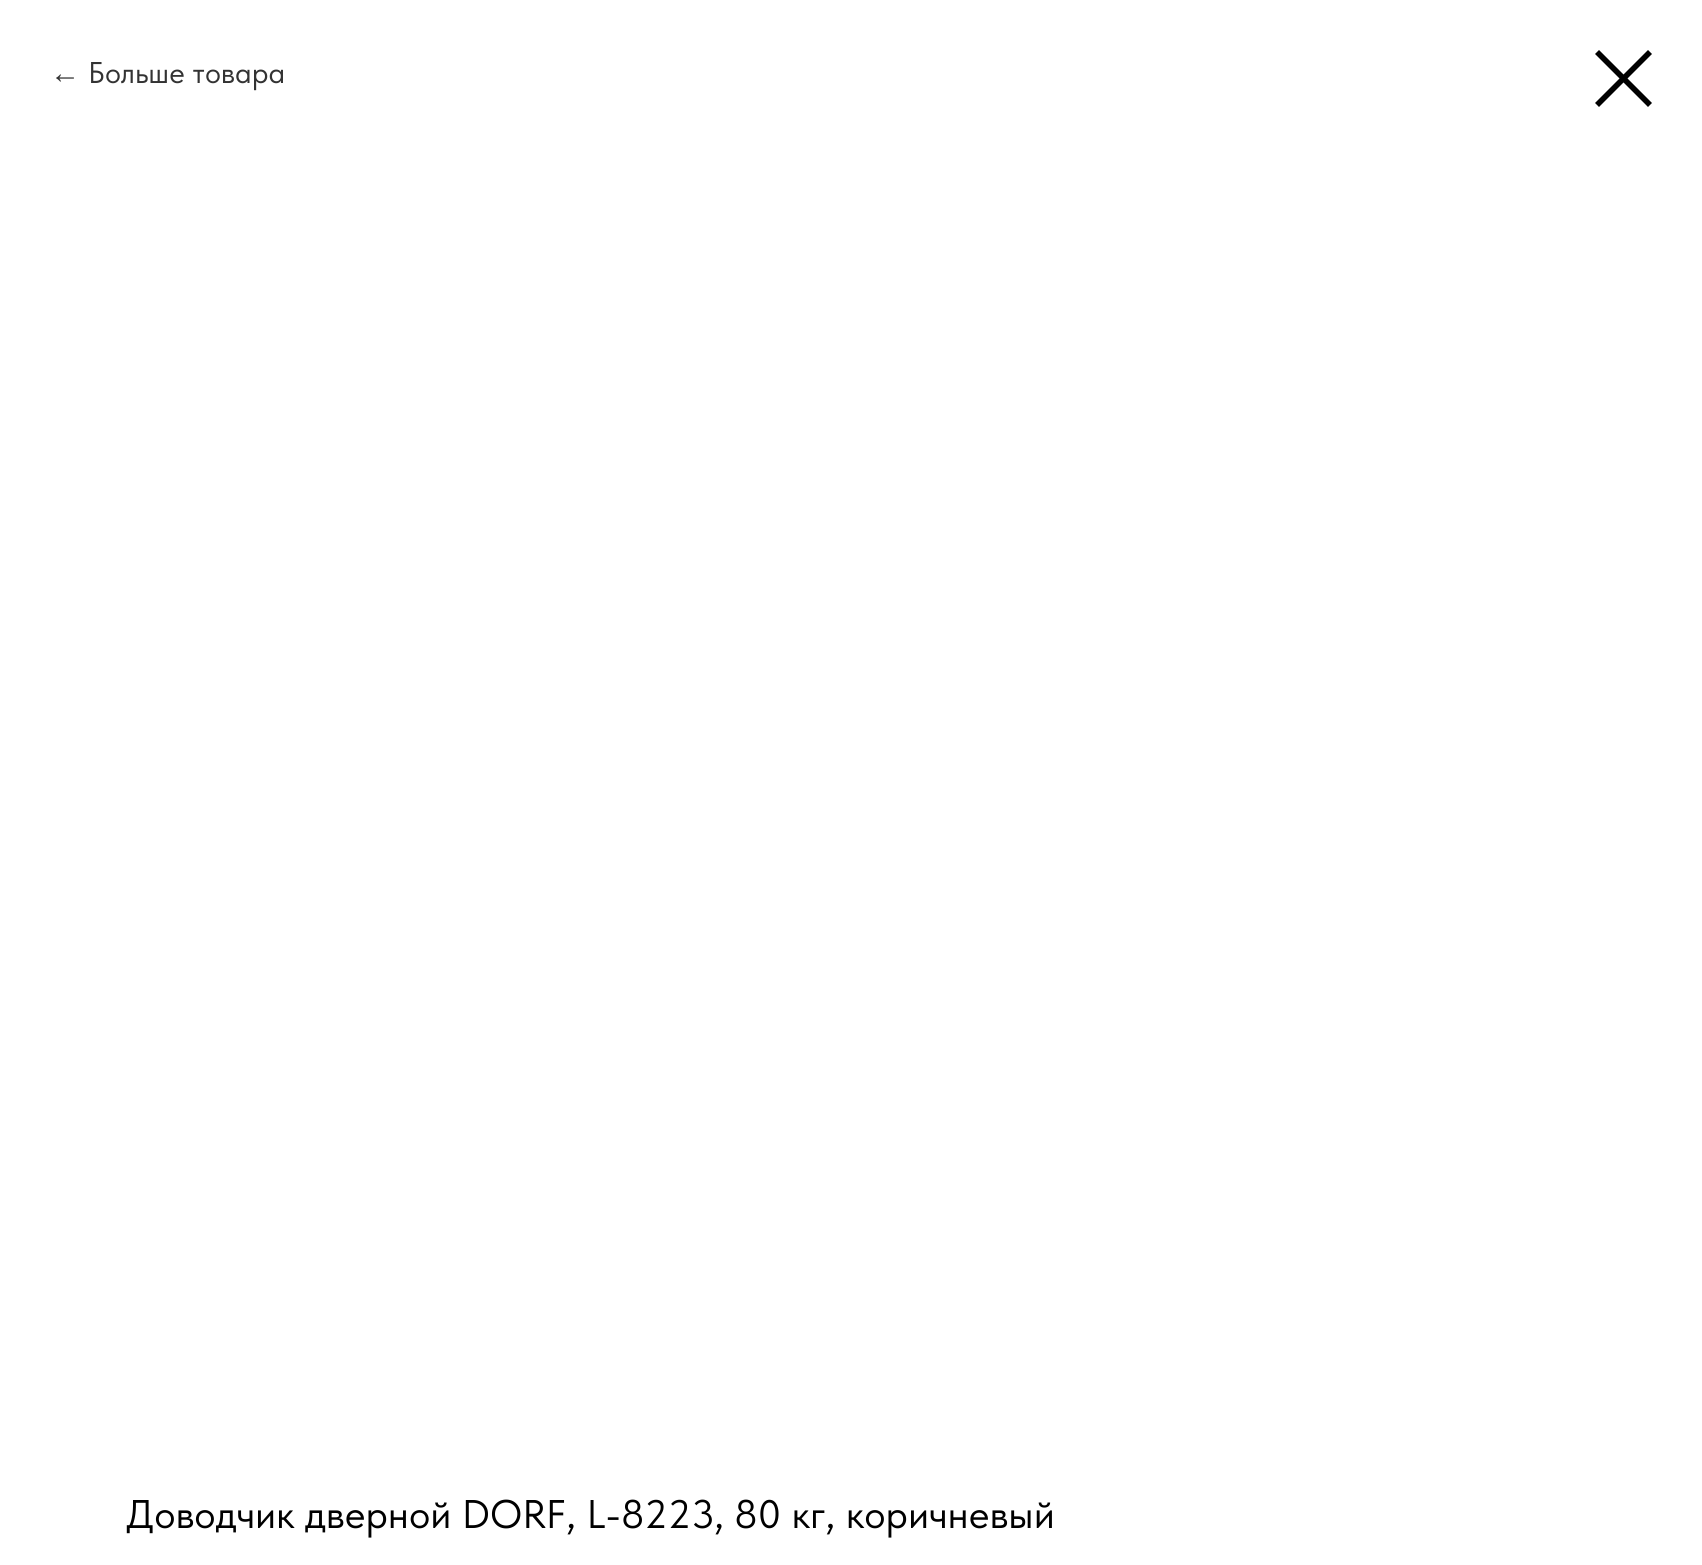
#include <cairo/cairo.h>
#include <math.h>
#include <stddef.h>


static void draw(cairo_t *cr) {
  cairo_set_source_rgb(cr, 1, 1, 1);
  cairo_paint(cr);
  cairo_set_source_rgb(cr, 0, 0, 0);
  cairo_set_fill_rule(cr, CAIRO_FILL_RULE_EVEN_ODD);
  cairo_new_path(cr);
  cairo_move_to(cr, 1595, 54);
  cairo_line_to(cr, 1599, 50);
  cairo_line_to(cr, 1652, 103);
  cairo_line_to(cr, 1648, 107);
  cairo_close_path(cr);
  cairo_fill(cr);
  cairo_new_path(cr);
  cairo_move_to(cr, 1648, 50);
  cairo_line_to(cr, 1652, 54);
  cairo_line_to(cr, 1599, 107);
  cairo_line_to(cr, 1595, 103);
  cairo_close_path(cr);
  cairo_fill(cr);
  cairo_select_font_face(cr, "Liberation Sans", CAIRO_FONT_SLANT_NORMAL, CAIRO_FONT_WEIGHT_NORMAL);
  cairo_set_font_size(cr, 30);
  cairo_set_source_rgb(cr, 51 / 255.0, 51 / 255.0, 51 / 255.0);
  cairo_move_to(cr, 50, 83);
  cairo_show_text(cr, "←");
  cairo_select_font_face(cr, "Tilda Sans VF", CAIRO_FONT_SLANT_NORMAL, CAIRO_FONT_WEIGHT_NORMAL);
  cairo_move_to(cr, 88, 83);
  cairo_show_text(cr, "Больше товара");
  cairo_set_font_size(cr, 40);
  cairo_set_source_rgb(cr, 0, 0, 0);
  cairo_move_to(cr, 126, 1528);
  cairo_show_text(cr, "Доводчик дверной DORF, L-8223, 80 кг, коричневый");
}

int main(void) {
  cairo_surface_t *surface = cairo_image_surface_create(CAIRO_FORMAT_RGB24, 1702, 1565);
  cairo_t *cr = cairo_create(surface);
  cairo_font_options_t *options = cairo_font_options_create();
  cairo_font_options_set_hint_metrics(options, CAIRO_HINT_METRICS_OFF);
  cairo_font_options_set_hint_style(options, CAIRO_HINT_STYLE_NONE);
  cairo_set_font_options(cr, options);
  cairo_set_miter_limit(cr, 4);
  draw(cr);
  cairo_surface_write_to_png(surface, "out.png");
  cairo_font_options_destroy(options);
  cairo_destroy(cr);
  cairo_surface_destroy(surface);
  return 0;
}
